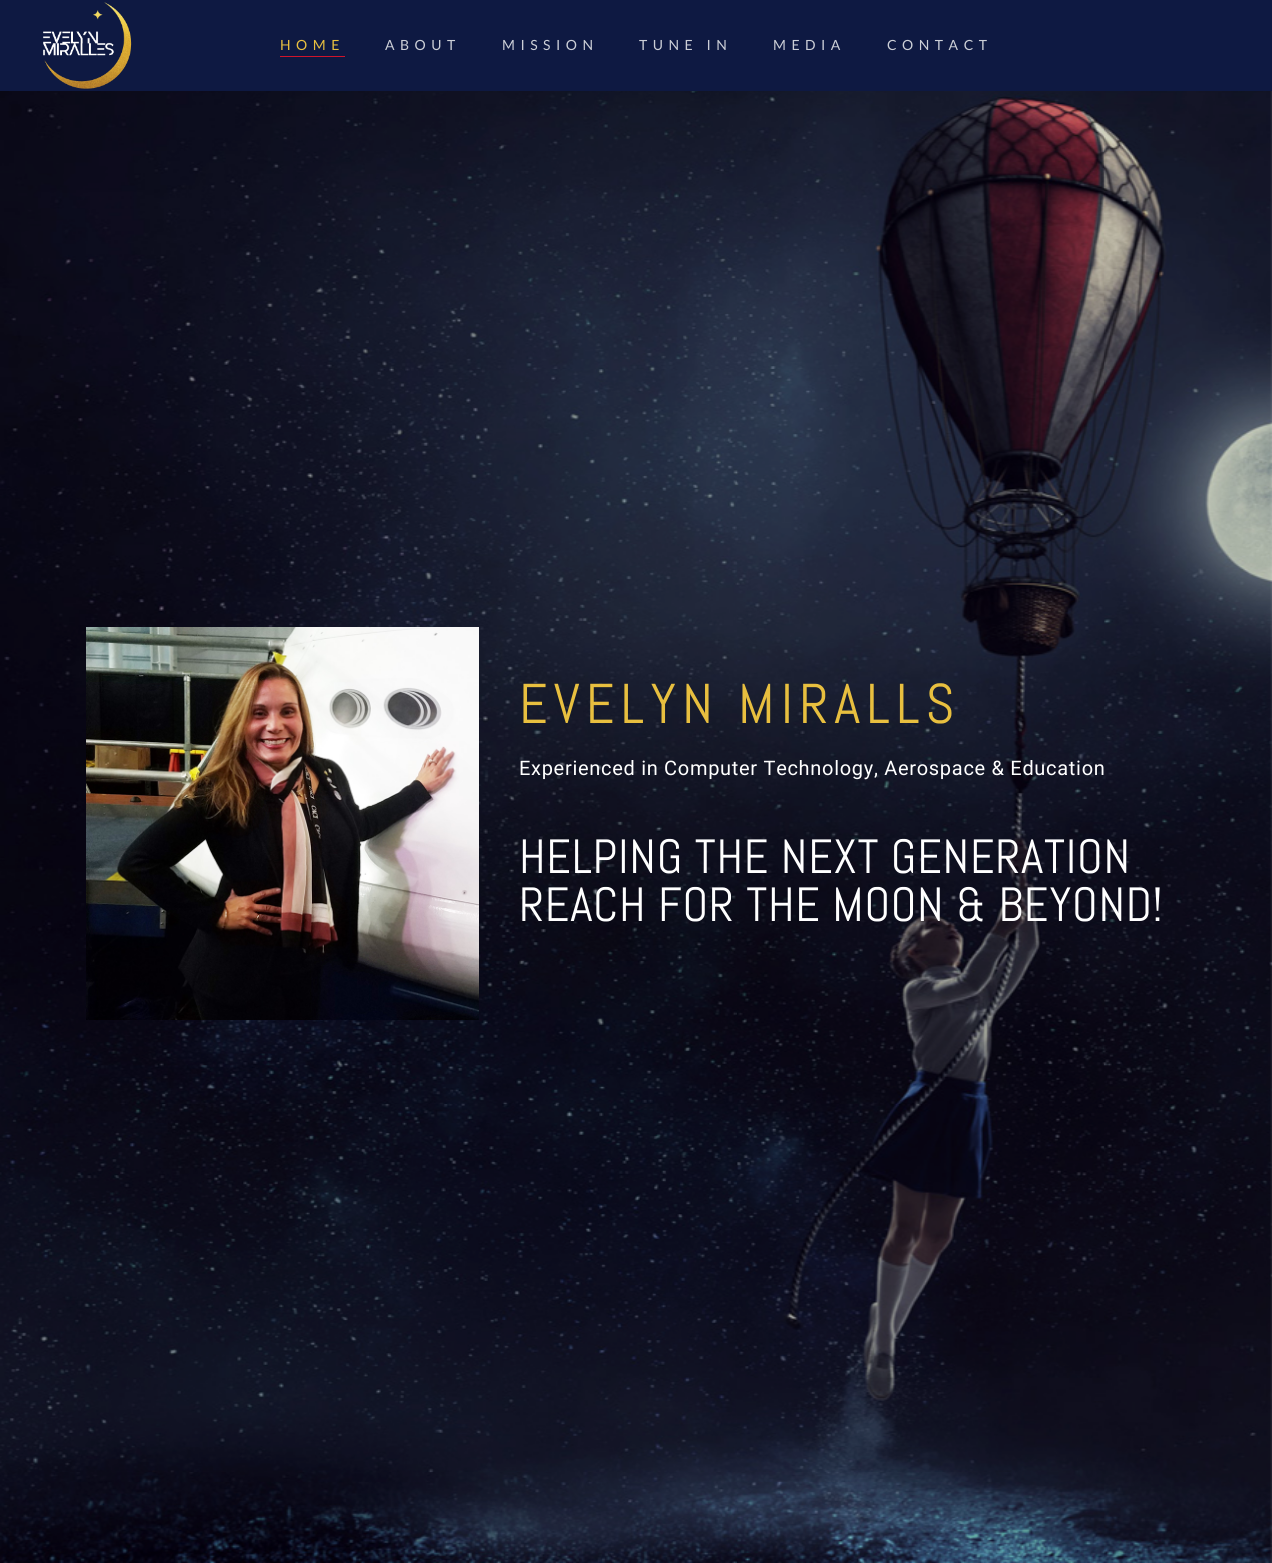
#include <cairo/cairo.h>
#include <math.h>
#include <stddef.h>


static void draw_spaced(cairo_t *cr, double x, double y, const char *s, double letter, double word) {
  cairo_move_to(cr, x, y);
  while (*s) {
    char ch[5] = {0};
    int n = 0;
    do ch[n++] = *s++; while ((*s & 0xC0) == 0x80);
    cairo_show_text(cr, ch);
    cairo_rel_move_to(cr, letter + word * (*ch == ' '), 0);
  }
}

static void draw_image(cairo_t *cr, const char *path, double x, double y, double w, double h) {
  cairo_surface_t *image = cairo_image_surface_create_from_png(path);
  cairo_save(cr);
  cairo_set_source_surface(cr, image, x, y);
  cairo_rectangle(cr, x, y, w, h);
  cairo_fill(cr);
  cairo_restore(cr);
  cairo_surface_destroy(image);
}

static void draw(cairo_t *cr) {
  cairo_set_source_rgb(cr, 1, 1, 1);
  cairo_paint(cr);
  cairo_set_source_rgb(cr, 14 / 255.0, 25 / 255.0, 66 / 255.0);
  cairo_rectangle(cr, 0, 0, 1272, 91);
  cairo_fill(cr);
  draw_image(cr, "images/1.png", 43, 2, 89, 87);
  cairo_set_source_rgb(cr, 207 / 255.0, 20 / 255.0, 43 / 255.0);
  cairo_rectangle(cr, 280, 56, 65, 1);
  cairo_fill(cr);
  draw_image(cr, "images/2.png", 0, 91, 1272, 1472);
  draw_image(cr, "images/3.png", 86, 627, 393, 393);
  cairo_select_font_face(cr, "Lato", CAIRO_FONT_SLANT_NORMAL, CAIRO_FONT_WEIGHT_NORMAL);
  cairo_set_font_size(cr, 14);
  cairo_set_source_rgb(cr, 232 / 255.0, 191 / 255.0, 63 / 255.0);
  draw_spaced(cr, 280, 50, "HOME", 5.5, 0);
  cairo_set_source_rgb(cr, 204 / 255.0, 207 / 255.0, 215 / 255.0);
  draw_spaced(cr, 385, 50, "ABOUT", 5.5, 0);
  draw_spaced(cr, 502, 50, "MISSION", 5.5, 0);
  draw_spaced(cr, 639, 50, "TUNE IN", 5.5, 0);
  draw_spaced(cr, 773, 50, "MEDIA", 5.5, 0);
  draw_spaced(cr, 887, 50, "CONTACT", 5.5, 0);
  cairo_select_font_face(cr, "Abel", CAIRO_FONT_SLANT_NORMAL, CAIRO_FONT_WEIGHT_NORMAL);
  cairo_set_font_size(cr, 56);
  cairo_set_source_rgb(cr, 232 / 255.0, 191 / 255.0, 63 / 255.0);
  draw_spaced(cr, 519, 723, "EVELYN MIRALLS", 6, 0);
  cairo_select_font_face(cr, "Roboto", CAIRO_FONT_SLANT_NORMAL, CAIRO_FONT_WEIGHT_NORMAL);
  cairo_set_font_size(cr, 20);
  cairo_set_source_rgb(cr, 1, 1, 1);
  draw_spaced(cr, 519, 775, "Experienced in Computer Technology, Aerospace & Education", 0.7, 0);
  cairo_select_font_face(cr, "Abel", CAIRO_FONT_SLANT_NORMAL, CAIRO_FONT_WEIGHT_NORMAL);
  cairo_set_font_size(cr, 48);
  draw_spaced(cr, 519, 873, "HELPING THE NEXT GENERATION", 0.7, 0);
  draw_spaced(cr, 519, 921, "REACH FOR THE MOON & BEYOND!", 0.7, 0);
}

int main(void) {
  cairo_surface_t *surface = cairo_image_surface_create(CAIRO_FORMAT_RGB24, 1272, 1563);
  cairo_t *cr = cairo_create(surface);
  cairo_font_options_t *options = cairo_font_options_create();
  cairo_font_options_set_hint_metrics(options, CAIRO_HINT_METRICS_OFF);
  cairo_font_options_set_hint_style(options, CAIRO_HINT_STYLE_NONE);
  cairo_set_font_options(cr, options);
  cairo_set_miter_limit(cr, 4);
  draw(cr);
  cairo_surface_write_to_png(surface, "out.png");
  cairo_font_options_destroy(options);
  cairo_destroy(cr);
  cairo_surface_destroy(surface);
  return 0;
}
